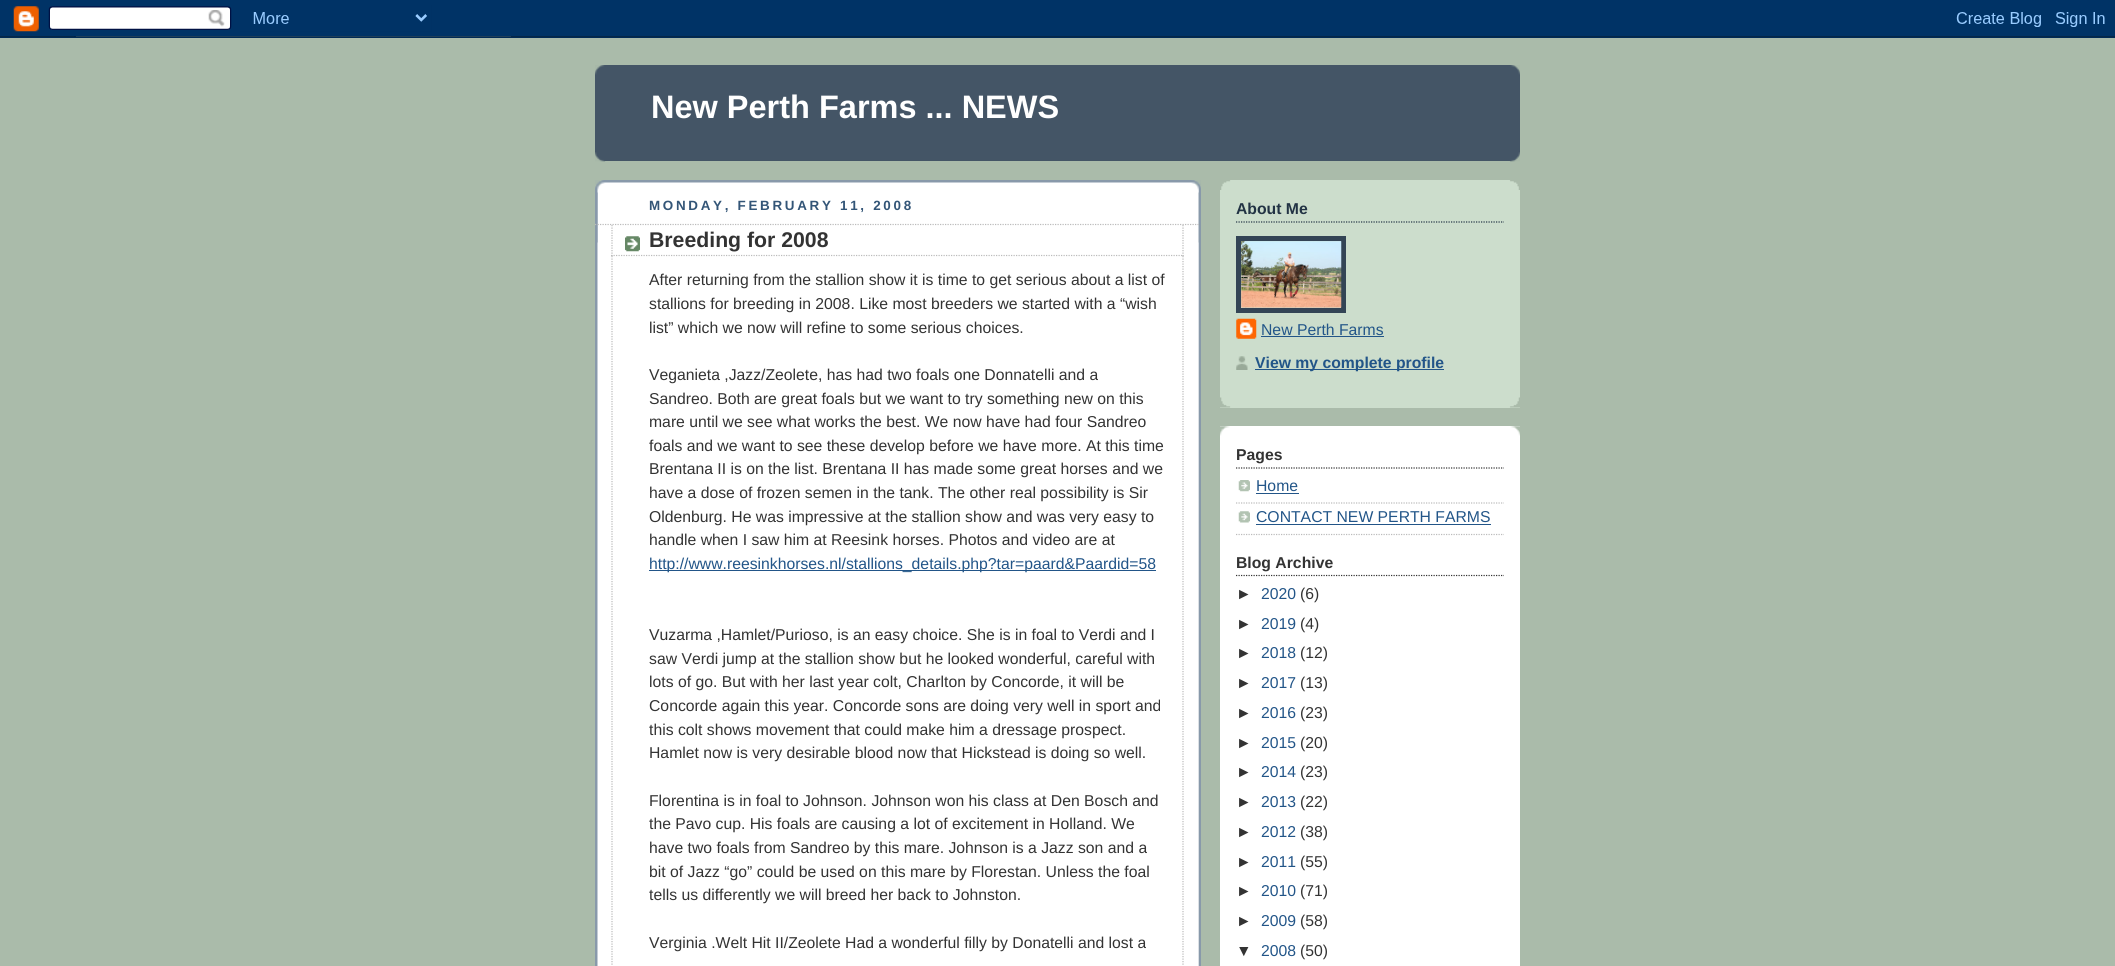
#include <cairo/cairo.h>
#include <math.h>
#include <stddef.h>


static void draw_spaced(cairo_t *cr, double x, double y, const char *s, double letter, double word) {
  cairo_move_to(cr, x, y);
  while (*s) {
    char ch[5] = {0};
    int n = 0;
    do ch[n++] = *s++; while ((*s & 0xC0) == 0x80);
    cairo_show_text(cr, ch);
    cairo_rel_move_to(cr, letter + word * (*ch == ' '), 0);
  }
}

static void draw_image(cairo_t *cr, const char *path, double x, double y, double w, double h) {
  cairo_surface_t *image = cairo_image_surface_create_from_png(path);
  cairo_save(cr);
  cairo_set_source_surface(cr, image, x, y);
  cairo_rectangle(cr, x, y, w, h);
  cairo_fill(cr);
  cairo_restore(cr);
  cairo_surface_destroy(image);
}

static void draw(cairo_t *cr) {
  cairo_set_source_rgb(cr, 170 / 255.0, 187 / 255.0, 170 / 255.0);
  cairo_paint(cr);
  draw_image(cr, "images/1.png", 0, 0, 2115, 38);
  cairo_set_source_rgb(cr, 68 / 255.0, 85 / 255.0, 102 / 255.0);
  cairo_rectangle(cr, 595, 65, 925, 96);
  cairo_fill(cr);
  draw_image(cr, "images/2.png", 595, 65, 925, 10);
  draw_image(cr, "images/3.png", 595, 152, 925, 10);
  cairo_set_source_rgb(cr, 1, 1, 1);
  cairo_rectangle(cr, 597, 182, 602, 784);
  cairo_fill(cr);
  draw_image(cr, "images/4.png", 595, 180, 606, 63);
  draw_image(cr, "images/5.png", 595, 192, 606, 774);
  cairo_new_path(cr);
  cairo_move_to(cr, 595, 224.5);
  cairo_line_to(cr, 1200, 224.5);
  cairo_set_source_rgb(cr, 187 / 255.0, 187 / 255.0, 187 / 255.0);
  cairo_set_line_width(cr, 1.2);
  cairo_set_dash(cr, (double[]){1.25, 1.25}, 2, 0);
  cairo_stroke(cr);
  draw_image(cr, "images/6.png", 625, 236, 15, 16);
  cairo_new_path(cr);
  cairo_move_to(cr, 1183, 225);
  cairo_line_to(cr, 1183, 256);
  cairo_stroke(cr);
  cairo_new_path(cr);
  cairo_move_to(cr, 611, 255.5);
  cairo_line_to(cr, 1184, 255.5);
  cairo_stroke(cr);
  cairo_new_path(cr);
  cairo_move_to(cr, 612, 225);
  cairo_line_to(cr, 612, 256);
  cairo_stroke(cr);
  cairo_new_path(cr);
  cairo_move_to(cr, 1183, 256);
  cairo_line_to(cr, 1183, 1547.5);
  cairo_stroke(cr);
  cairo_new_path(cr);
  cairo_move_to(cr, 612, 256);
  cairo_line_to(cr, 612, 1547.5);
  cairo_stroke(cr);
  cairo_set_source_rgb(cr, 34 / 255.0, 85 / 255.0, 136 / 255.0);
  cairo_rectangle(cr, 649, 570, 507, 1);
  cairo_fill(cr);
  cairo_set_source_rgb(cr, 204 / 255.0, 221 / 255.0, 204 / 255.0);
  cairo_rectangle(cr, 1220, 180, 300, 228);
  cairo_fill(cr);
  draw_image(cr, "images/7.png", 1220, 397, 300, 11);
  draw_image(cr, "images/8.png", 1220, 180, 300, 10);
  cairo_new_path(cr);
  cairo_move_to(cr, 1236, 222);
  cairo_line_to(cr, 1504, 222);
  cairo_set_source_rgb(cr, 34 / 255.0, 51 / 255.0, 68 / 255.0);
  cairo_stroke(cr);
  cairo_rectangle(cr, 1238.5, 238.5, 105, 72);
  cairo_set_source_rgb(cr, 51 / 255.0, 68 / 255.0, 85 / 255.0);
  cairo_set_line_width(cr, 5);
  cairo_set_dash(cr, NULL, 0, 0);
  cairo_stroke(cr);
  draw_image(cr, "images/9.png", 1241, 241, 101, 67);
  draw_image(cr, "images/10.png", 1236, 318, 21, 21);
  cairo_set_source_rgb(cr, 34 / 255.0, 85 / 255.0, 136 / 255.0);
  cairo_rectangle(cr, 1261, 336, 123, 1);
  cairo_fill(cr);
  draw_image(cr, "images/11.png", 1236, 356, 12, 14);
  cairo_rectangle(cr, 1255, 369, 189, 1);
  cairo_fill(cr);
  cairo_set_source_rgb(cr, 1, 1, 1);
  cairo_rectangle(cr, 1220, 426, 300, 540);
  cairo_fill(cr);
  draw_image(cr, "images/12.png", 1220, 426, 300, 10);
  cairo_new_path(cr);
  cairo_move_to(cr, 1236, 468);
  cairo_line_to(cr, 1504, 468);
  cairo_set_source_rgb(cr, 51 / 255.0, 51 / 255.0, 51 / 255.0);
  cairo_set_line_width(cr, 1.2);
  cairo_set_dash(cr, (double[]){1.25, 1.25}, 2, 0);
  cairo_stroke(cr);
  draw_image(cr, "images/13.png", 1238, 480, 12, 12);
  cairo_new_path(cr);
  cairo_move_to(cr, 1236, 503);
  cairo_line_to(cr, 1504, 503);
  cairo_set_source_rgb(cr, 187 / 255.0, 187 / 255.0, 187 / 255.0);
  cairo_stroke(cr);
  cairo_set_source_rgb(cr, 34 / 255.0, 85 / 255.0, 136 / 255.0);
  cairo_rectangle(cr, 1256, 493, 43, 1);
  cairo_fill(cr);
  draw_image(cr, "images/14.png", 1238, 511, 12, 12);
  cairo_new_path(cr);
  cairo_move_to(cr, 1236, 534.5);
  cairo_line_to(cr, 1504, 534.5);
  cairo_set_source_rgb(cr, 187 / 255.0, 187 / 255.0, 187 / 255.0);
  cairo_stroke(cr);
  cairo_set_source_rgb(cr, 34 / 255.0, 85 / 255.0, 136 / 255.0);
  cairo_rectangle(cr, 1256, 524, 235, 1);
  cairo_fill(cr);
  cairo_new_path(cr);
  cairo_move_to(cr, 1236, 575.5);
  cairo_line_to(cr, 1504, 575.5);
  cairo_set_source_rgb(cr, 51 / 255.0, 51 / 255.0, 51 / 255.0);
  cairo_stroke(cr);
  cairo_select_font_face(cr, "Liberation Sans", CAIRO_FONT_SLANT_NORMAL, CAIRO_FONT_WEIGHT_BOLD);
  cairo_set_font_size(cr, 32.5);
  cairo_set_source_rgb(cr, 1, 1, 1);
  cairo_move_to(cr, 651, 118);
  cairo_show_text(cr, "New Perth Farms ... NEWS");
  cairo_set_font_size(cr, 13.4);
  cairo_set_source_rgb(cr, 51 / 255.0, 85 / 255.0, 119 / 255.0);
  draw_spaced(cr, 649, 210, "MONDAY, FEBRUARY 11, 2008", 2.7, 0);
  cairo_set_font_size(cr, 21.25);
  cairo_set_source_rgb(cr, 51 / 255.0, 51 / 255.0, 51 / 255.0);
  cairo_move_to(cr, 649, 247);
  cairo_show_text(cr, "Breeding for 2008");
  cairo_select_font_face(cr, "Liberation Sans", CAIRO_FONT_SLANT_NORMAL, CAIRO_FONT_WEIGHT_NORMAL);
  cairo_set_font_size(cr, 15.75);
  cairo_move_to(cr, 649, 285);
  cairo_show_text(cr, "After returning from the stallion show it is time to get serious about a list of");
  cairo_move_to(cr, 649, 309);
  cairo_show_text(cr, "stallions for breeding in 2008. Like most breeders we started with a “wish");
  cairo_move_to(cr, 649, 333);
  cairo_show_text(cr, "list” which we now will refine to some serious choices.");
  cairo_move_to(cr, 649, 380);
  cairo_show_text(cr, "Veganieta ,Jazz/Zeolete, has had two foals one Donnatelli and a");
  cairo_move_to(cr, 649, 404);
  cairo_show_text(cr, "Sandreo. Both are great foals but we want to try something new on this");
  cairo_move_to(cr, 649, 427);
  cairo_show_text(cr, "mare until we see what works the best. We now have had four Sandreo");
  cairo_move_to(cr, 649, 451);
  cairo_show_text(cr, "foals and we want to see these develop before we have more. At this time");
  cairo_move_to(cr, 649, 474);
  cairo_show_text(cr, "Brentana II is on the list. Brentana II has made some great horses and we");
  cairo_move_to(cr, 649, 498);
  cairo_show_text(cr, "have a dose of frozen semen in the tank. The other real possibility is Sir");
  cairo_move_to(cr, 649, 522);
  cairo_show_text(cr, "Oldenburg. He was impressive at the stallion show and was very easy to");
  cairo_move_to(cr, 649, 545);
  cairo_show_text(cr, "handle when I saw him at Reesink horses. Photos and video are at");
  cairo_set_source_rgb(cr, 34 / 255.0, 85 / 255.0, 136 / 255.0);
  cairo_move_to(cr, 649, 569);
  cairo_show_text(cr, "http://www.reesinkhorses.nl/stallions_details.php?tar=paard&Paardid=58");
  cairo_set_source_rgb(cr, 51 / 255.0, 51 / 255.0, 51 / 255.0);
  cairo_move_to(cr, 649, 640);
  cairo_show_text(cr, "Vuzarma ,Hamlet/Purioso, is an easy choice. She is in foal to Verdi and I");
  cairo_move_to(cr, 649, 664);
  cairo_show_text(cr, "saw Verdi jump at the stallion show but he looked wonderful, careful with");
  cairo_move_to(cr, 649, 687);
  cairo_show_text(cr, "lots of go. But with her last year colt, Charlton by Concorde, it will be");
  cairo_move_to(cr, 649, 711);
  cairo_show_text(cr, "Concorde again this year. Concorde sons are doing very well in sport and");
  cairo_move_to(cr, 649, 735);
  cairo_show_text(cr, "this colt shows movement that could make him a dressage prospect.");
  cairo_move_to(cr, 649, 758);
  cairo_show_text(cr, "Hamlet now is very desirable blood now that Hickstead is doing so well.");
  cairo_move_to(cr, 649, 806);
  cairo_show_text(cr, "Florentina is in foal to Johnson. Johnson won his class at Den Bosch and");
  cairo_move_to(cr, 649, 829);
  cairo_show_text(cr, "the Pavo cup. His foals are causing a lot of excitement in Holland. We");
  cairo_move_to(cr, 649, 853);
  cairo_show_text(cr, "have two foals from Sandreo by this mare. Johnson is a Jazz son and a");
  cairo_move_to(cr, 649, 877);
  cairo_show_text(cr, "bit of Jazz “go” could be used on this mare by Florestan. Unless the foal");
  cairo_move_to(cr, 649, 900);
  cairo_show_text(cr, "tells us differently we will breed her back to Johnston.");
  cairo_move_to(cr, 649, 948);
  cairo_show_text(cr, "Verginia .Welt Hit II/Zeolete Had a wonderful filly by Donatelli and lost a");
  cairo_select_font_face(cr, "Liberation Sans", CAIRO_FONT_SLANT_NORMAL, CAIRO_FONT_WEIGHT_BOLD);
  cairo_set_source_rgb(cr, 34 / 255.0, 51 / 255.0, 68 / 255.0);
  cairo_move_to(cr, 1236, 214);
  cairo_show_text(cr, "About Me");
  cairo_select_font_face(cr, "Liberation Sans", CAIRO_FONT_SLANT_NORMAL, CAIRO_FONT_WEIGHT_NORMAL);
  cairo_set_source_rgb(cr, 34 / 255.0, 85 / 255.0, 136 / 255.0);
  cairo_move_to(cr, 1261, 335);
  cairo_show_text(cr, "New Perth Farms");
  cairo_select_font_face(cr, "Liberation Sans", CAIRO_FONT_SLANT_NORMAL, CAIRO_FONT_WEIGHT_BOLD);
  cairo_move_to(cr, 1255, 368);
  cairo_show_text(cr, "View my complete profile");
  cairo_set_source_rgb(cr, 51 / 255.0, 51 / 255.0, 51 / 255.0);
  cairo_move_to(cr, 1236, 460);
  cairo_show_text(cr, "Pages");
  cairo_select_font_face(cr, "Liberation Sans", CAIRO_FONT_SLANT_NORMAL, CAIRO_FONT_WEIGHT_NORMAL);
  cairo_set_source_rgb(cr, 34 / 255.0, 85 / 255.0, 136 / 255.0);
  cairo_move_to(cr, 1256, 491);
  cairo_show_text(cr, "Home");
  cairo_move_to(cr, 1256, 522);
  cairo_show_text(cr, "CONTACT NEW PERTH FARMS");
  cairo_select_font_face(cr, "Liberation Sans", CAIRO_FONT_SLANT_NORMAL, CAIRO_FONT_WEIGHT_BOLD);
  cairo_set_source_rgb(cr, 51 / 255.0, 51 / 255.0, 51 / 255.0);
  cairo_move_to(cr, 1236, 568);
  cairo_show_text(cr, "Blog Archive");
  cairo_select_font_face(cr, "Liberation Sans", CAIRO_FONT_SLANT_NORMAL, CAIRO_FONT_WEIGHT_NORMAL);
  cairo_move_to(cr, 1236, 599);
  cairo_show_text(cr, "►");
  cairo_set_source_rgb(cr, 34 / 255.0, 85 / 255.0, 136 / 255.0);
  cairo_move_to(cr, 1261, 599);
  cairo_show_text(cr, "2020");
  cairo_set_source_rgb(cr, 51 / 255.0, 51 / 255.0, 51 / 255.0);
  cairo_move_to(cr, 1300, 599);
  cairo_show_text(cr, "(6)");
  cairo_move_to(cr, 1236, 629);
  cairo_show_text(cr, "►");
  cairo_set_source_rgb(cr, 34 / 255.0, 85 / 255.0, 136 / 255.0);
  cairo_move_to(cr, 1261, 629);
  cairo_show_text(cr, "2019");
  cairo_set_source_rgb(cr, 51 / 255.0, 51 / 255.0, 51 / 255.0);
  cairo_move_to(cr, 1300, 629);
  cairo_show_text(cr, "(4)");
  cairo_move_to(cr, 1236, 658);
  cairo_show_text(cr, "►");
  cairo_set_source_rgb(cr, 34 / 255.0, 85 / 255.0, 136 / 255.0);
  cairo_move_to(cr, 1261, 658);
  cairo_show_text(cr, "2018");
  cairo_set_source_rgb(cr, 51 / 255.0, 51 / 255.0, 51 / 255.0);
  cairo_move_to(cr, 1300, 658);
  cairo_show_text(cr, "(12)");
  cairo_move_to(cr, 1236, 688);
  cairo_show_text(cr, "►");
  cairo_set_source_rgb(cr, 34 / 255.0, 85 / 255.0, 136 / 255.0);
  cairo_move_to(cr, 1261, 688);
  cairo_show_text(cr, "2017");
  cairo_set_source_rgb(cr, 51 / 255.0, 51 / 255.0, 51 / 255.0);
  cairo_move_to(cr, 1300, 688);
  cairo_show_text(cr, "(13)");
  cairo_move_to(cr, 1236, 718);
  cairo_show_text(cr, "►");
  cairo_set_source_rgb(cr, 34 / 255.0, 85 / 255.0, 136 / 255.0);
  cairo_move_to(cr, 1261, 718);
  cairo_show_text(cr, "2016");
  cairo_set_source_rgb(cr, 51 / 255.0, 51 / 255.0, 51 / 255.0);
  cairo_move_to(cr, 1300, 718);
  cairo_show_text(cr, "(23)");
  cairo_move_to(cr, 1236, 748);
  cairo_show_text(cr, "►");
  cairo_set_source_rgb(cr, 34 / 255.0, 85 / 255.0, 136 / 255.0);
  cairo_move_to(cr, 1261, 748);
  cairo_show_text(cr, "2015");
  cairo_set_source_rgb(cr, 51 / 255.0, 51 / 255.0, 51 / 255.0);
  cairo_move_to(cr, 1300, 748);
  cairo_show_text(cr, "(20)");
  cairo_move_to(cr, 1236, 777);
  cairo_show_text(cr, "►");
  cairo_set_source_rgb(cr, 34 / 255.0, 85 / 255.0, 136 / 255.0);
  cairo_move_to(cr, 1261, 777);
  cairo_show_text(cr, "2014");
  cairo_set_source_rgb(cr, 51 / 255.0, 51 / 255.0, 51 / 255.0);
  cairo_move_to(cr, 1300, 777);
  cairo_show_text(cr, "(23)");
  cairo_move_to(cr, 1236, 807);
  cairo_show_text(cr, "►");
  cairo_set_source_rgb(cr, 34 / 255.0, 85 / 255.0, 136 / 255.0);
  cairo_move_to(cr, 1261, 807);
  cairo_show_text(cr, "2013");
  cairo_set_source_rgb(cr, 51 / 255.0, 51 / 255.0, 51 / 255.0);
  cairo_move_to(cr, 1300, 807);
  cairo_show_text(cr, "(22)");
  cairo_move_to(cr, 1236, 837);
  cairo_show_text(cr, "►");
  cairo_set_source_rgb(cr, 34 / 255.0, 85 / 255.0, 136 / 255.0);
  cairo_move_to(cr, 1261, 837);
  cairo_show_text(cr, "2012");
  cairo_set_source_rgb(cr, 51 / 255.0, 51 / 255.0, 51 / 255.0);
  cairo_move_to(cr, 1300, 837);
  cairo_show_text(cr, "(38)");
  cairo_move_to(cr, 1236, 867);
  cairo_show_text(cr, "►");
  cairo_set_source_rgb(cr, 34 / 255.0, 85 / 255.0, 136 / 255.0);
  cairo_move_to(cr, 1261, 867);
  cairo_show_text(cr, "2011");
  cairo_set_source_rgb(cr, 51 / 255.0, 51 / 255.0, 51 / 255.0);
  cairo_move_to(cr, 1300, 867);
  cairo_show_text(cr, "(55)");
  cairo_move_to(cr, 1236, 896);
  cairo_show_text(cr, "►");
  cairo_set_source_rgb(cr, 34 / 255.0, 85 / 255.0, 136 / 255.0);
  cairo_move_to(cr, 1261, 896);
  cairo_show_text(cr, "2010");
  cairo_set_source_rgb(cr, 51 / 255.0, 51 / 255.0, 51 / 255.0);
  cairo_move_to(cr, 1300, 896);
  cairo_show_text(cr, "(71)");
  cairo_move_to(cr, 1236, 926);
  cairo_show_text(cr, "►");
  cairo_set_source_rgb(cr, 34 / 255.0, 85 / 255.0, 136 / 255.0);
  cairo_move_to(cr, 1261, 926);
  cairo_show_text(cr, "2009");
  cairo_set_source_rgb(cr, 51 / 255.0, 51 / 255.0, 51 / 255.0);
  cairo_move_to(cr, 1300, 926);
  cairo_show_text(cr, "(58)");
  cairo_move_to(cr, 1236, 956);
  cairo_show_text(cr, "▼");
  cairo_set_source_rgb(cr, 34 / 255.0, 85 / 255.0, 136 / 255.0);
  cairo_move_to(cr, 1261, 956);
  cairo_show_text(cr, "2008");
  cairo_set_source_rgb(cr, 51 / 255.0, 51 / 255.0, 51 / 255.0);
  cairo_move_to(cr, 1300, 956);
  cairo_show_text(cr, "(50)");
}

int main(void) {
  cairo_surface_t *surface = cairo_image_surface_create(CAIRO_FORMAT_RGB24, 2115, 966);
  cairo_t *cr = cairo_create(surface);
  cairo_font_options_t *options = cairo_font_options_create();
  cairo_font_options_set_hint_metrics(options, CAIRO_HINT_METRICS_OFF);
  cairo_font_options_set_hint_style(options, CAIRO_HINT_STYLE_NONE);
  cairo_set_font_options(cr, options);
  cairo_set_miter_limit(cr, 4);
  draw(cr);
  cairo_surface_write_to_png(surface, "out.png");
  cairo_font_options_destroy(options);
  cairo_destroy(cr);
  cairo_surface_destroy(surface);
  return 0;
}
